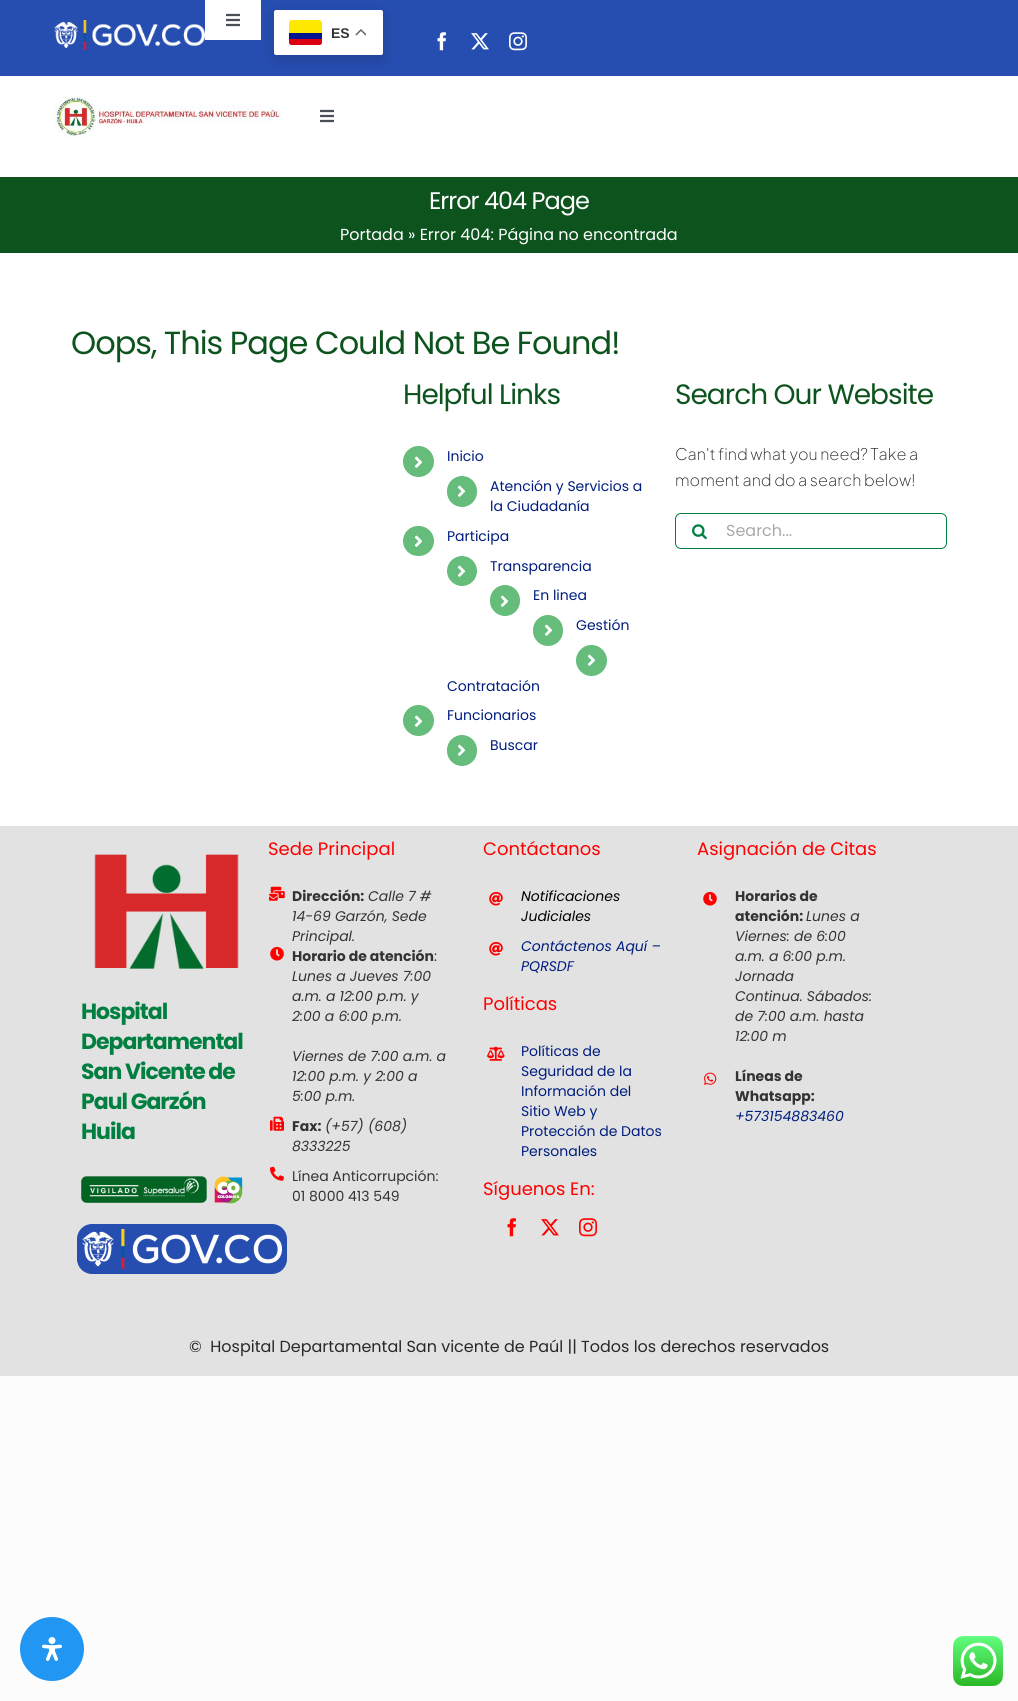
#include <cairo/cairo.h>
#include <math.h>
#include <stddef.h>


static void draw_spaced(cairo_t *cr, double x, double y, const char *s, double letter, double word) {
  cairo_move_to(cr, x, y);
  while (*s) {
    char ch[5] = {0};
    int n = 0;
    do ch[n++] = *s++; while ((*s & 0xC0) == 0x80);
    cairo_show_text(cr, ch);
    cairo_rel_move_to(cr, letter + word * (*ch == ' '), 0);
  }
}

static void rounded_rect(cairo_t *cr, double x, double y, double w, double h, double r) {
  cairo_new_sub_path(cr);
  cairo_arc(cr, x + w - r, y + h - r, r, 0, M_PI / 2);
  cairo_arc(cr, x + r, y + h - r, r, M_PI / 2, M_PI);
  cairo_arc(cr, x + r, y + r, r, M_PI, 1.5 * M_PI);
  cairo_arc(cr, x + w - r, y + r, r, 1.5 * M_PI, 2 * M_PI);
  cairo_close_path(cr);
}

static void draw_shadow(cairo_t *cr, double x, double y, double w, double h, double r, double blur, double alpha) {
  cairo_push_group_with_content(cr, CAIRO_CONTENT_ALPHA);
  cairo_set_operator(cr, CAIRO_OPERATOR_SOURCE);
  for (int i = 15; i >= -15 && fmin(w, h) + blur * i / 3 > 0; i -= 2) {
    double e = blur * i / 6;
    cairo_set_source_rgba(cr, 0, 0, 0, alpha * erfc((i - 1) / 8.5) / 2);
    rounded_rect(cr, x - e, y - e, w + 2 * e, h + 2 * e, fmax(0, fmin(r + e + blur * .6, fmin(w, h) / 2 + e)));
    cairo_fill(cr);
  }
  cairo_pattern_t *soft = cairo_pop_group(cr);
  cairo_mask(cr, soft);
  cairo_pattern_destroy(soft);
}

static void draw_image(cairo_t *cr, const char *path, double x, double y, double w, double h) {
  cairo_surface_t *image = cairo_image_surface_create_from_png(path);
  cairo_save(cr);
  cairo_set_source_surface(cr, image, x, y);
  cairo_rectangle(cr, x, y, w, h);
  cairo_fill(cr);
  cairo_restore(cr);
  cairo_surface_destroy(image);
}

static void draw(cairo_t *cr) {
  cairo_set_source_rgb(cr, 252 / 255.0, 252 / 255.0, 252 / 255.0);
  cairo_paint(cr);
  cairo_set_source_rgb(cr, 1, 1, 1);
  cairo_rectangle(cr, 0, 76, 1018, 750);
  cairo_fill(cr);
  cairo_set_source_rgb(cr, 38 / 255.0, 78 / 255.0, 176 / 255.0);
  cairo_rectangle(cr, 0, 0, 1018, 76);
  cairo_fill(cr);
  draw_image(cr, "images/1.png", 54, 20, 151, 30);
  cairo_set_source_rgb(cr, 0, 0, 0);
  draw_shadow(cr, 274, 15, 109, 45, 2, 7.5, 0.15);
  cairo_set_source_rgb(cr, 1, 1, 1);
  cairo_rectangle(cr, 205, 0, 56, 40);
  cairo_fill(cr);
  draw_image(cr, "images/2.png", 226, 13, 14, 14);
  rounded_rect(cr, 274, 10, 109, 45, 2);
  cairo_fill(cr);
  cairo_set_source_rgb(cr, 1, 232 / 255.0, 0);
  rounded_rect(cr, 289, 20, 33, 25, 3);
  cairo_fill(cr);
  cairo_set_source_rgb(cr, 0, 20 / 255.0, 142 / 255.0);
  cairo_new_path(cr);
  cairo_move_to(cr, 289, 33);
  cairo_line_to(cr, 322, 33);
  cairo_line_to(cr, 322, 42);
  cairo_curve_to(cr, 322, 43.5, 320.5, 45, 319, 45);
  cairo_line_to(cr, 292, 45);
  cairo_curve_to(cr, 290.5, 45, 289, 43.5, 289, 42);
  cairo_close_path(cr);
  cairo_fill(cr);
  cairo_set_source_rgb(cr, 218 / 255.0, 0, 16 / 255.0);
  cairo_new_path(cr);
  cairo_move_to(cr, 289, 39);
  cairo_line_to(cr, 322, 39);
  cairo_line_to(cr, 322, 42);
  cairo_curve_to(cr, 322, 43.5, 320.5, 45, 319, 45);
  cairo_line_to(cr, 292, 45);
  cairo_curve_to(cr, 290.5, 45, 289, 43.5, 289, 42);
  cairo_close_path(cr);
  cairo_fill(cr);
  draw_image(cr, "images/3.png", 355, 29, 11, 7);
  draw_image(cr, "images/4.png", 437, 32, 9, 19);
  draw_image(cr, "images/5.png", 471, 33, 18, 17);
  draw_image(cr, "images/6.png", 509, 32, 18, 19);
  draw_image(cr, "images/7.png", 54, 96, 227, 41);
  draw_image(cr, "images/2.png", 320, 109, 14, 14);
  cairo_set_source_rgb(cr, 13 / 255.0, 83 / 255.0, 30 / 255.0);
  cairo_rectangle(cr, 0, 177, 1018, 76);
  cairo_fill(cr);
  cairo_set_source_rgb(cr, 101 / 255.0, 188 / 255.0, 123 / 255.0);
  cairo_arc(cr, 418.5, 461.5, 15.5, 0, 2 * M_PI);
  cairo_fill(cr);
  draw_image(cr, "images/8.png", 414, 456, 9, 12);
  rounded_rect(cr, 447, 476, 30, 31, 15);
  cairo_fill(cr);
  draw_image(cr, "images/8.png", 457, 485, 9, 12);
  rounded_rect(cr, 403, 526, 31, 30, 15);
  cairo_fill(cr);
  draw_image(cr, "images/8.png", 414, 535, 9, 12);
  cairo_arc(cr, 462, 571, 15, 0, 2 * M_PI);
  cairo_fill(cr);
  draw_image(cr, "images/8.png", 457, 565, 9, 12);
  rounded_rect(cr, 490, 585, 30, 31, 15);
  cairo_fill(cr);
  draw_image(cr, "images/8.png", 500, 595, 9, 12);
  rounded_rect(cr, 533, 615, 30, 31, 15);
  cairo_fill(cr);
  draw_image(cr, "images/8.png", 544, 624, 9, 12);
  cairo_arc(cr, 591.5, 660.5, 15.5, 0, 2 * M_PI);
  cairo_fill(cr);
  draw_image(cr, "images/8.png", 587, 654, 9, 12);
  cairo_arc(cr, 418.5, 720.5, 15.5, 0, 2 * M_PI);
  cairo_fill(cr);
  draw_image(cr, "images/8.png", 414, 715, 9, 12);
  rounded_rect(cr, 447, 735, 30, 31, 15);
  cairo_fill(cr);
  draw_image(cr, "images/8.png", 457, 744, 9, 12);
  rounded_rect(cr, 675.5, 513.5, 271, 35, 5.5);
  cairo_set_source_rgb(cr, 0, 127 / 255.0, 65 / 255.0);
  cairo_set_line_width(cr, 1);
  cairo_stroke(cr);
  draw_image(cr, "images/9.png", 692, 524, 15, 16);
  cairo_set_source_rgb(cr, 226 / 255.0, 226 / 255.0, 226 / 255.0);
  cairo_rectangle(cr, 0, 826, 1018, 550);
  cairo_fill(cr);
  draw_image(cr, "images/10.png", 94, 854, 145, 115);
  draw_image(cr, "images/11.png", 81, 1176, 126, 27);
  draw_image(cr, "images/12.png", 214, 1176, 29, 28);
  cairo_set_source_rgb(cr, 38 / 255.0, 78 / 255.0, 176 / 255.0);
  rounded_rect(cr, 77, 1224, 210, 50, 15);
  cairo_fill(cr);
  draw_image(cr, "images/13.png", 82, 1229, 200, 40);
  draw_image(cr, "images/14.png", 269, 886, 16, 15);
  draw_image(cr, "images/15.png", 270, 947, 14, 14);
  draw_image(cr, "images/16.png", 270, 1116, 14, 15);
  draw_image(cr, "images/17.png", 270, 1166, 14, 15);
  draw_image(cr, "images/18.png", 489, 892, 14, 14);
  draw_image(cr, "images/18.png", 489, 942, 14, 14);
  draw_image(cr, "images/19.png", 487, 1046, 18, 15);
  draw_image(cr, "images/20.png", 507, 1218, 9, 19);
  draw_image(cr, "images/21.png", 541, 1219, 18, 17);
  draw_image(cr, "images/22.png", 579, 1218, 18, 19);
  draw_image(cr, "images/15.png", 703, 892, 14, 14);
  draw_image(cr, "images/23.png", 704, 1072, 13, 13);
  cairo_set_source_rgb(cr, 33 / 255.0, 150 / 255.0, 243 / 255.0);
  cairo_arc(cr, 52, 1649, 32, 0, 2 * M_PI);
  cairo_fill(cr);
  draw_image(cr, "images/24.png", 42, 1637, 20, 24);
  draw_image(cr, "images/25.png", 953, 1636, 50, 50);
  cairo_select_font_face(cr, "Liberation Sans", CAIRO_FONT_SLANT_NORMAL, CAIRO_FONT_WEIGHT_BOLD);
  cairo_set_font_size(cr, 14);
  cairo_set_source_rgb(cr, 51 / 255.0, 51 / 255.0, 51 / 255.0);
  cairo_move_to(cr, 331, 38);
  cairo_show_text(cr, "ES");
  cairo_select_font_face(cr, "Poppins", CAIRO_FONT_SLANT_NORMAL, CAIRO_FONT_WEIGHT_NORMAL);
  cairo_set_font_size(cr, 24);
  cairo_set_source_rgb(cr, 1, 1, 1);
  draw_spaced(cr, 429, 209, "Error 404 Page", -1, 0);
  cairo_set_font_size(cr, 16);
  cairo_move_to(cr, 340, 240);
  cairo_show_text(cr, "Portada » Error 404: Página no encontrada");
  cairo_set_font_size(cr, 32);
  cairo_set_source_rgb(cr, 13 / 255.0, 83 / 255.0, 30 / 255.0);
  draw_spaced(cr, 71, 354, "Oops, This Page Could Not Be Found!", -1, 0);
  cairo_set_font_size(cr, 28);
  draw_spaced(cr, 403, 404, "Helpful Links", -1, 0);
  cairo_set_font_size(cr, 14);
  cairo_set_source_rgb(cr, 0, 29 / 255.0, 126 / 255.0);
  cairo_move_to(cr, 447, 461);
  cairo_show_text(cr, "Inicio");
  cairo_move_to(cr, 490, 491);
  cairo_show_text(cr, "Atención y Servicios a");
  cairo_move_to(cr, 490, 511);
  cairo_show_text(cr, "la Ciudadanía");
  cairo_move_to(cr, 447, 541);
  cairo_show_text(cr, "Participa");
  cairo_move_to(cr, 490, 571);
  cairo_show_text(cr, "Transparencia");
  cairo_move_to(cr, 533, 600);
  cairo_show_text(cr, "En linea");
  cairo_move_to(cr, 576, 630);
  cairo_show_text(cr, "Gestión");
  cairo_move_to(cr, 447, 691);
  cairo_show_text(cr, "Contratación");
  cairo_move_to(cr, 447, 720);
  cairo_show_text(cr, "Funcionarios");
  cairo_move_to(cr, 490, 750);
  cairo_show_text(cr, "Buscar");
  cairo_set_font_size(cr, 28);
  cairo_set_source_rgb(cr, 13 / 255.0, 83 / 255.0, 30 / 255.0);
  draw_spaced(cr, 675, 404, "Search Our Website", -1, 0);
  cairo_select_font_face(cr, "Plus Jakarta Sans ExtraLight", CAIRO_FONT_SLANT_NORMAL, CAIRO_FONT_WEIGHT_NORMAL);
  cairo_set_font_size(cr, 16);
  cairo_set_source_rgb(cr, 40 / 255.0, 40 / 255.0, 40 / 255.0);
  cairo_move_to(cr, 675, 460);
  cairo_show_text(cr, "Can't find what you need? Take a");
  cairo_move_to(cr, 675, 486);
  cairo_show_text(cr, "moment and do a search below!");
  cairo_select_font_face(cr, "Poppins", CAIRO_FONT_SLANT_NORMAL, CAIRO_FONT_WEIGHT_NORMAL);
  cairo_set_source_rgb(cr, 170 / 255.0, 169 / 255.0, 169 / 255.0);
  cairo_move_to(cr, 726, 536);
  cairo_show_text(cr, "Search...");
  cairo_select_font_face(cr, "Poppins", CAIRO_FONT_SLANT_NORMAL, CAIRO_FONT_WEIGHT_BOLD);
  cairo_set_font_size(cr, 22);
  cairo_set_source_rgb(cr, 0, 127 / 255.0, 65 / 255.0);
  draw_spaced(cr, 81, 1019, "Hospital", -1, 0);
  draw_spaced(cr, 81, 1049, "Departamental", -1, 0);
  draw_spaced(cr, 81, 1079, "San Vicente de", -1, 0);
  draw_spaced(cr, 81, 1109, "Paul Garzón", -1, 0);
  draw_spaced(cr, 81, 1139, "Huila", -1, 0);
  cairo_select_font_face(cr, "Poppins", CAIRO_FONT_SLANT_NORMAL, CAIRO_FONT_WEIGHT_NORMAL);
  cairo_set_font_size(cr, 18);
  cairo_set_source_rgb(cr, 1, 0, 0);
  cairo_move_to(cr, 268, 855);
  cairo_show_text(cr, "Sede Principal");
  cairo_select_font_face(cr, "Poppins", CAIRO_FONT_SLANT_NORMAL, CAIRO_FONT_WEIGHT_BOLD);
  cairo_set_font_size(cr, 14);
  cairo_set_source_rgb(cr, 51 / 255.0, 51 / 255.0, 51 / 255.0);
  cairo_move_to(cr, 292, 901);
  cairo_show_text(cr, "Dirección:");
  cairo_select_font_face(cr, "Poppins", CAIRO_FONT_SLANT_ITALIC, CAIRO_FONT_WEIGHT_NORMAL);
  cairo_move_to(cr, 368, 901);
  cairo_show_text(cr, "Calle 7 #");
  cairo_move_to(cr, 292, 921);
  cairo_show_text(cr, "14-69 Garzón, Sede");
  cairo_move_to(cr, 292, 941);
  cairo_show_text(cr, "Principal.");
  cairo_select_font_face(cr, "Poppins", CAIRO_FONT_SLANT_NORMAL, CAIRO_FONT_WEIGHT_BOLD);
  cairo_move_to(cr, 292, 961);
  cairo_show_text(cr, "Horario de atención");
  cairo_select_font_face(cr, "Poppins", CAIRO_FONT_SLANT_NORMAL, CAIRO_FONT_WEIGHT_NORMAL);
  cairo_move_to(cr, 434, 961);
  cairo_show_text(cr, ":");
  cairo_select_font_face(cr, "Poppins", CAIRO_FONT_SLANT_ITALIC, CAIRO_FONT_WEIGHT_NORMAL);
  cairo_move_to(cr, 292, 981);
  cairo_show_text(cr, "Lunes a Jueves 7:00");
  cairo_move_to(cr, 292, 1001);
  cairo_show_text(cr, "a.m. a 12:00 p.m. y");
  cairo_move_to(cr, 292, 1021);
  cairo_show_text(cr, "2:00 a 6:00 p.m.");
  cairo_move_to(cr, 292, 1061);
  cairo_show_text(cr, "Viernes de 7:00 a.m. a");
  cairo_move_to(cr, 292, 1081);
  cairo_show_text(cr, "12:00 p.m. y 2:00 a");
  cairo_move_to(cr, 292, 1101);
  cairo_show_text(cr, "5:00 p.m.");
  cairo_select_font_face(cr, "Poppins", CAIRO_FONT_SLANT_NORMAL, CAIRO_FONT_WEIGHT_BOLD);
  cairo_move_to(cr, 292, 1131);
  cairo_show_text(cr, "Fax:");
  cairo_select_font_face(cr, "Poppins", CAIRO_FONT_SLANT_ITALIC, CAIRO_FONT_WEIGHT_NORMAL);
  cairo_move_to(cr, 325, 1131);
  cairo_show_text(cr, "(+57) (608)");
  cairo_move_to(cr, 292, 1151);
  cairo_show_text(cr, "8333225");
  cairo_select_font_face(cr, "Poppins", CAIRO_FONT_SLANT_NORMAL, CAIRO_FONT_WEIGHT_NORMAL);
  cairo_move_to(cr, 292, 1181);
  cairo_show_text(cr, "Línea Anticorrupción:");
  cairo_move_to(cr, 292, 1201);
  cairo_show_text(cr, "01 8000 413 549");
  cairo_set_font_size(cr, 18);
  cairo_set_source_rgb(cr, 1, 0, 0);
  cairo_move_to(cr, 483, 855);
  cairo_show_text(cr, "Contáctanos");
  cairo_select_font_face(cr, "Poppins", CAIRO_FONT_SLANT_ITALIC, CAIRO_FONT_WEIGHT_NORMAL);
  cairo_set_font_size(cr, 14);
  cairo_set_source_rgb(cr, 0, 0, 0);
  cairo_move_to(cr, 521, 901);
  cairo_show_text(cr, "Notificaciones");
  cairo_move_to(cr, 521, 921);
  cairo_show_text(cr, "Judiciales");
  cairo_set_source_rgb(cr, 0, 29 / 255.0, 126 / 255.0);
  cairo_move_to(cr, 521, 951);
  cairo_show_text(cr, "Contáctenos Aquí –");
  cairo_move_to(cr, 521, 971);
  cairo_show_text(cr, "PQRSDF");
  cairo_select_font_face(cr, "Poppins", CAIRO_FONT_SLANT_NORMAL, CAIRO_FONT_WEIGHT_NORMAL);
  cairo_set_font_size(cr, 18);
  cairo_set_source_rgb(cr, 1, 0, 0);
  cairo_move_to(cr, 483, 1010);
  cairo_show_text(cr, "Políticas");
  cairo_set_font_size(cr, 14);
  cairo_set_source_rgb(cr, 0, 29 / 255.0, 126 / 255.0);
  cairo_move_to(cr, 521, 1056);
  cairo_show_text(cr, "Políticas de");
  cairo_move_to(cr, 521, 1076);
  cairo_show_text(cr, "Seguridad de la");
  cairo_move_to(cr, 521, 1096);
  cairo_show_text(cr, "Información del");
  cairo_move_to(cr, 521, 1116);
  cairo_show_text(cr, "Sitio Web y");
  cairo_move_to(cr, 521, 1136);
  cairo_show_text(cr, "Protección de Datos");
  cairo_move_to(cr, 521, 1156);
  cairo_show_text(cr, "Personales");
  cairo_set_font_size(cr, 18);
  cairo_set_source_rgb(cr, 1, 0, 0);
  cairo_move_to(cr, 483, 1195);
  cairo_show_text(cr, "Síguenos En:");
  cairo_move_to(cr, 697, 855);
  cairo_show_text(cr, "Asignación de Citas");
  cairo_select_font_face(cr, "Poppins", CAIRO_FONT_SLANT_NORMAL, CAIRO_FONT_WEIGHT_BOLD);
  cairo_set_font_size(cr, 14);
  cairo_set_source_rgb(cr, 51 / 255.0, 51 / 255.0, 51 / 255.0);
  cairo_move_to(cr, 735, 901);
  cairo_show_text(cr, "Horarios de");
  cairo_move_to(cr, 735, 921);
  cairo_show_text(cr, "atención:");
  cairo_select_font_face(cr, "Poppins", CAIRO_FONT_SLANT_ITALIC, CAIRO_FONT_WEIGHT_NORMAL);
  cairo_move_to(cr, 806, 921);
  cairo_show_text(cr, "Lunes a");
  cairo_move_to(cr, 735, 941);
  cairo_show_text(cr, "Viernes: de 6:00");
  cairo_move_to(cr, 735, 961);
  cairo_show_text(cr, "a.m. a 6:00 p.m.");
  cairo_move_to(cr, 735, 981);
  cairo_show_text(cr, "Jornada");
  cairo_move_to(cr, 735, 1001);
  cairo_show_text(cr, "Continua. Sábados:");
  cairo_move_to(cr, 735, 1021);
  cairo_show_text(cr, "de 7:00 a.m. hasta");
  cairo_move_to(cr, 735, 1041);
  cairo_show_text(cr, "12:00 m");
  cairo_select_font_face(cr, "Poppins", CAIRO_FONT_SLANT_NORMAL, CAIRO_FONT_WEIGHT_BOLD);
  cairo_move_to(cr, 735, 1081);
  cairo_show_text(cr, "Líneas de");
  cairo_move_to(cr, 735, 1101);
  cairo_show_text(cr, "Whatsapp:");
  cairo_select_font_face(cr, "Poppins", CAIRO_FONT_SLANT_ITALIC, CAIRO_FONT_WEIGHT_NORMAL);
  cairo_set_source_rgb(cr, 0, 29 / 255.0, 126 / 255.0);
  cairo_move_to(cr, 735, 1121);
  cairo_show_text(cr, "+573154883460");
  cairo_select_font_face(cr, "Poppins", CAIRO_FONT_SLANT_NORMAL, CAIRO_FONT_WEIGHT_NORMAL);
  cairo_set_font_size(cr, 16);
  cairo_set_source_rgb(cr, 40 / 255.0, 40 / 255.0, 40 / 255.0);
  cairo_move_to(cr, 189, 1352);
  cairo_show_text(cr, "©  Hospital Departamental San vicente de Paúl || Todos los derechos reservados");
}

int main(void) {
  cairo_surface_t *surface = cairo_image_surface_create(CAIRO_FORMAT_RGB24, 1018, 1701);
  cairo_t *cr = cairo_create(surface);
  cairo_font_options_t *options = cairo_font_options_create();
  cairo_font_options_set_hint_metrics(options, CAIRO_HINT_METRICS_OFF);
  cairo_font_options_set_hint_style(options, CAIRO_HINT_STYLE_NONE);
  cairo_set_font_options(cr, options);
  cairo_set_miter_limit(cr, 4);
  draw(cr);
  cairo_surface_write_to_png(surface, "out.png");
  cairo_font_options_destroy(options);
  cairo_destroy(cr);
  cairo_surface_destroy(surface);
  return 0;
}
